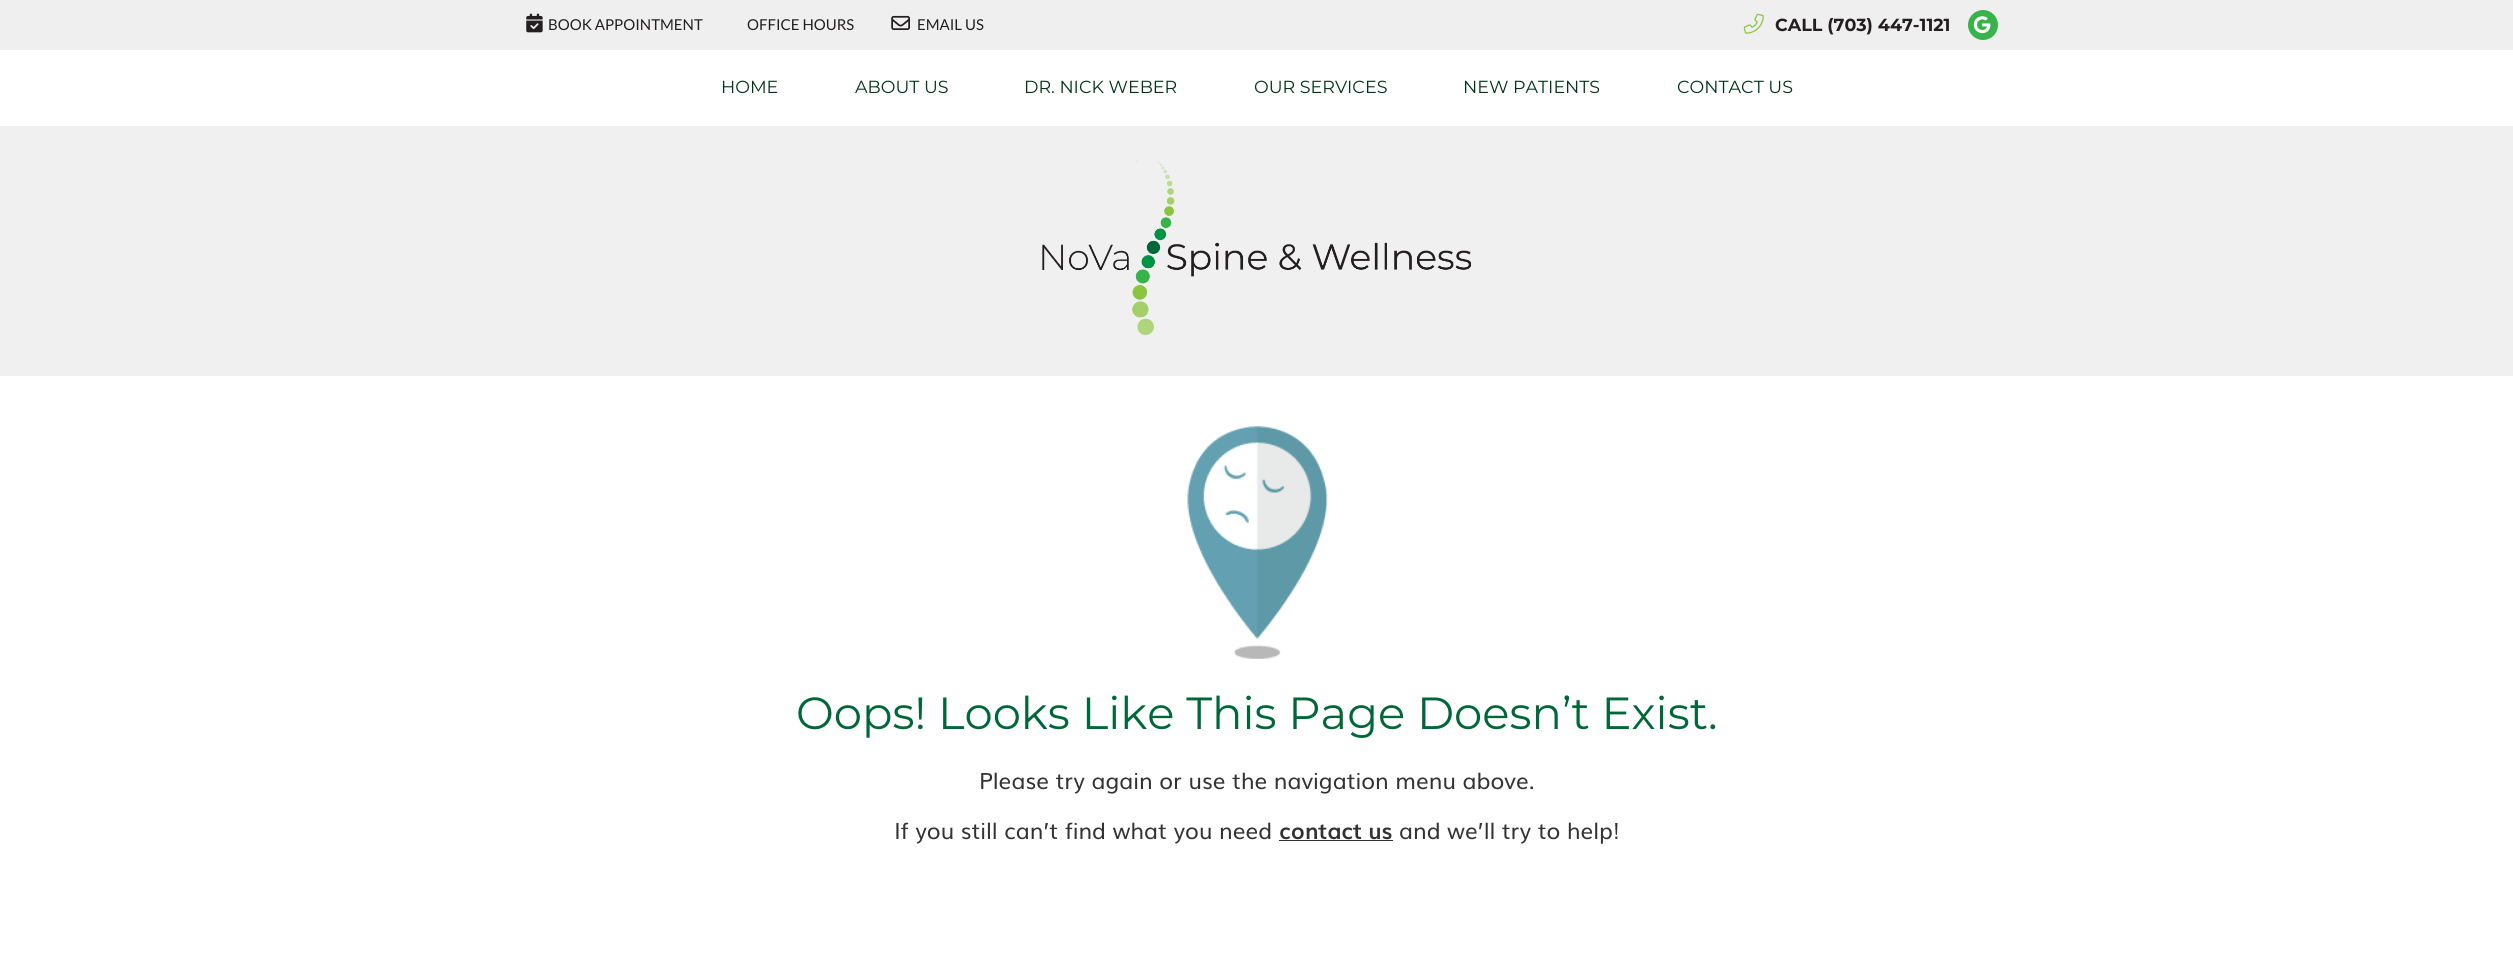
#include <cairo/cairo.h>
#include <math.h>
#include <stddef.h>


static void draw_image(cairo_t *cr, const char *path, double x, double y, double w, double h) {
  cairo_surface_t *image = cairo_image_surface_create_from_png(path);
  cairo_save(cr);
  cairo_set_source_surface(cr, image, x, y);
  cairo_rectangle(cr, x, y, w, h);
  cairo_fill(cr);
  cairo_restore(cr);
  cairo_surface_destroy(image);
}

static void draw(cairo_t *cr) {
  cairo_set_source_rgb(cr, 1, 1, 1);
  cairo_paint(cr);
  cairo_set_source_rgb(cr, 239 / 255.0, 239 / 255.0, 239 / 255.0);
  cairo_rectangle(cr, 0, 0, 2513, 50);
  cairo_fill(cr);
  draw_image(cr, "images/1.png", 526, 13, 17, 20);
  draw_image(cr, "images/2.png", 891, 15, 19, 15);
  draw_image(cr, "images/3.png", 1743, 13, 21, 21);
  cairo_set_source_rgb(cr, 55 / 255.0, 179 / 255.0, 74 / 255.0);
  cairo_arc(cr, 1983, 25, 15, 0, 2 * M_PI);
  cairo_fill(cr);
  draw_image(cr, "images/4.png", 1973, 16, 18, 18);
  cairo_set_source_rgb(cr, 240 / 255.0, 240 / 255.0, 240 / 255.0);
  cairo_rectangle(cr, 0, 126, 2513, 250);
  cairo_fill(cr);
  draw_image(cr, "images/5.png", 1042, 160, 430, 175);
  draw_image(cr, "images/6.png", 1187, 426, 141, 233);
  cairo_set_source_rgb(cr, 51 / 255.0, 51 / 255.0, 51 / 255.0);
  cairo_rectangle(cr, 1279, 840, 114, 1);
  cairo_fill(cr);
  cairo_select_font_face(cr, "Lato", CAIRO_FONT_SLANT_NORMAL, CAIRO_FONT_WEIGHT_NORMAL);
  cairo_set_font_size(cr, 15);
  cairo_set_source_rgb(cr, 35 / 255.0, 31 / 255.0, 32 / 255.0);
  cairo_move_to(cr, 548, 30);
  cairo_show_text(cr, "BOOK APPOINTMENT");
  cairo_move_to(cr, 747, 30);
  cairo_show_text(cr, "OFFICE HOURS");
  cairo_move_to(cr, 917, 30);
  cairo_show_text(cr, "EMAIL US");
  cairo_select_font_face(cr, "Montserrat", CAIRO_FONT_SLANT_NORMAL, CAIRO_FONT_WEIGHT_BOLD);
  cairo_set_font_size(cr, 17.5);
  cairo_move_to(cr, 1775, 31);
  cairo_show_text(cr, "CALL (703) 447-1121");
  cairo_select_font_face(cr, "Montserrat", CAIRO_FONT_SLANT_NORMAL, CAIRO_FONT_WEIGHT_NORMAL);
  cairo_set_source_rgb(cr, 1 / 255.0, 51 / 255.0, 28 / 255.0);
  cairo_move_to(cr, 721, 93);
  cairo_show_text(cr, "HOME");
  cairo_move_to(cr, 855, 93);
  cairo_show_text(cr, "ABOUT US");
  cairo_move_to(cr, 1024, 93);
  cairo_show_text(cr, "DR. NICK WEBER");
  cairo_move_to(cr, 1254, 93);
  cairo_show_text(cr, "OUR SERVICES");
  cairo_move_to(cr, 1463, 93);
  cairo_show_text(cr, "NEW PATIENTS");
  cairo_move_to(cr, 1677, 93);
  cairo_show_text(cr, "CONTACT US");
  cairo_set_font_size(cr, 45);
  cairo_set_source_rgb(cr, 0, 104 / 255.0, 56 / 255.0);
  cairo_move_to(cr, 796, 729);
  cairo_show_text(cr, "Oops! Looks Like This Page Doesn’t Exist.");
  cairo_select_font_face(cr, "Muli", CAIRO_FONT_SLANT_NORMAL, CAIRO_FONT_WEIGHT_NORMAL);
  cairo_set_font_size(cr, 22.5);
  cairo_set_source_rgb(cr, 51 / 255.0, 51 / 255.0, 51 / 255.0);
  cairo_move_to(cr, 979, 789);
  cairo_show_text(cr, "Please try again or use the navigation menu above.");
  cairo_move_to(cr, 894, 839);
  cairo_show_text(cr, "If you still can’t find what you need");
  cairo_select_font_face(cr, "Muli", CAIRO_FONT_SLANT_NORMAL, CAIRO_FONT_WEIGHT_BOLD);
  cairo_move_to(cr, 1279, 839);
  cairo_show_text(cr, "contact us");
  cairo_select_font_face(cr, "Muli", CAIRO_FONT_SLANT_NORMAL, CAIRO_FONT_WEIGHT_NORMAL);
  cairo_move_to(cr, 1399, 839);
  cairo_show_text(cr, "and we’ll try to help!");
}

int main(void) {
  cairo_surface_t *surface = cairo_image_surface_create(CAIRO_FORMAT_RGB24, 2513, 957);
  cairo_t *cr = cairo_create(surface);
  cairo_font_options_t *options = cairo_font_options_create();
  cairo_font_options_set_hint_metrics(options, CAIRO_HINT_METRICS_OFF);
  cairo_font_options_set_hint_style(options, CAIRO_HINT_STYLE_NONE);
  cairo_set_font_options(cr, options);
  cairo_set_miter_limit(cr, 4);
  draw(cr);
  cairo_surface_write_to_png(surface, "out.png");
  cairo_font_options_destroy(options);
  cairo_destroy(cr);
  cairo_surface_destroy(surface);
  return 0;
}
